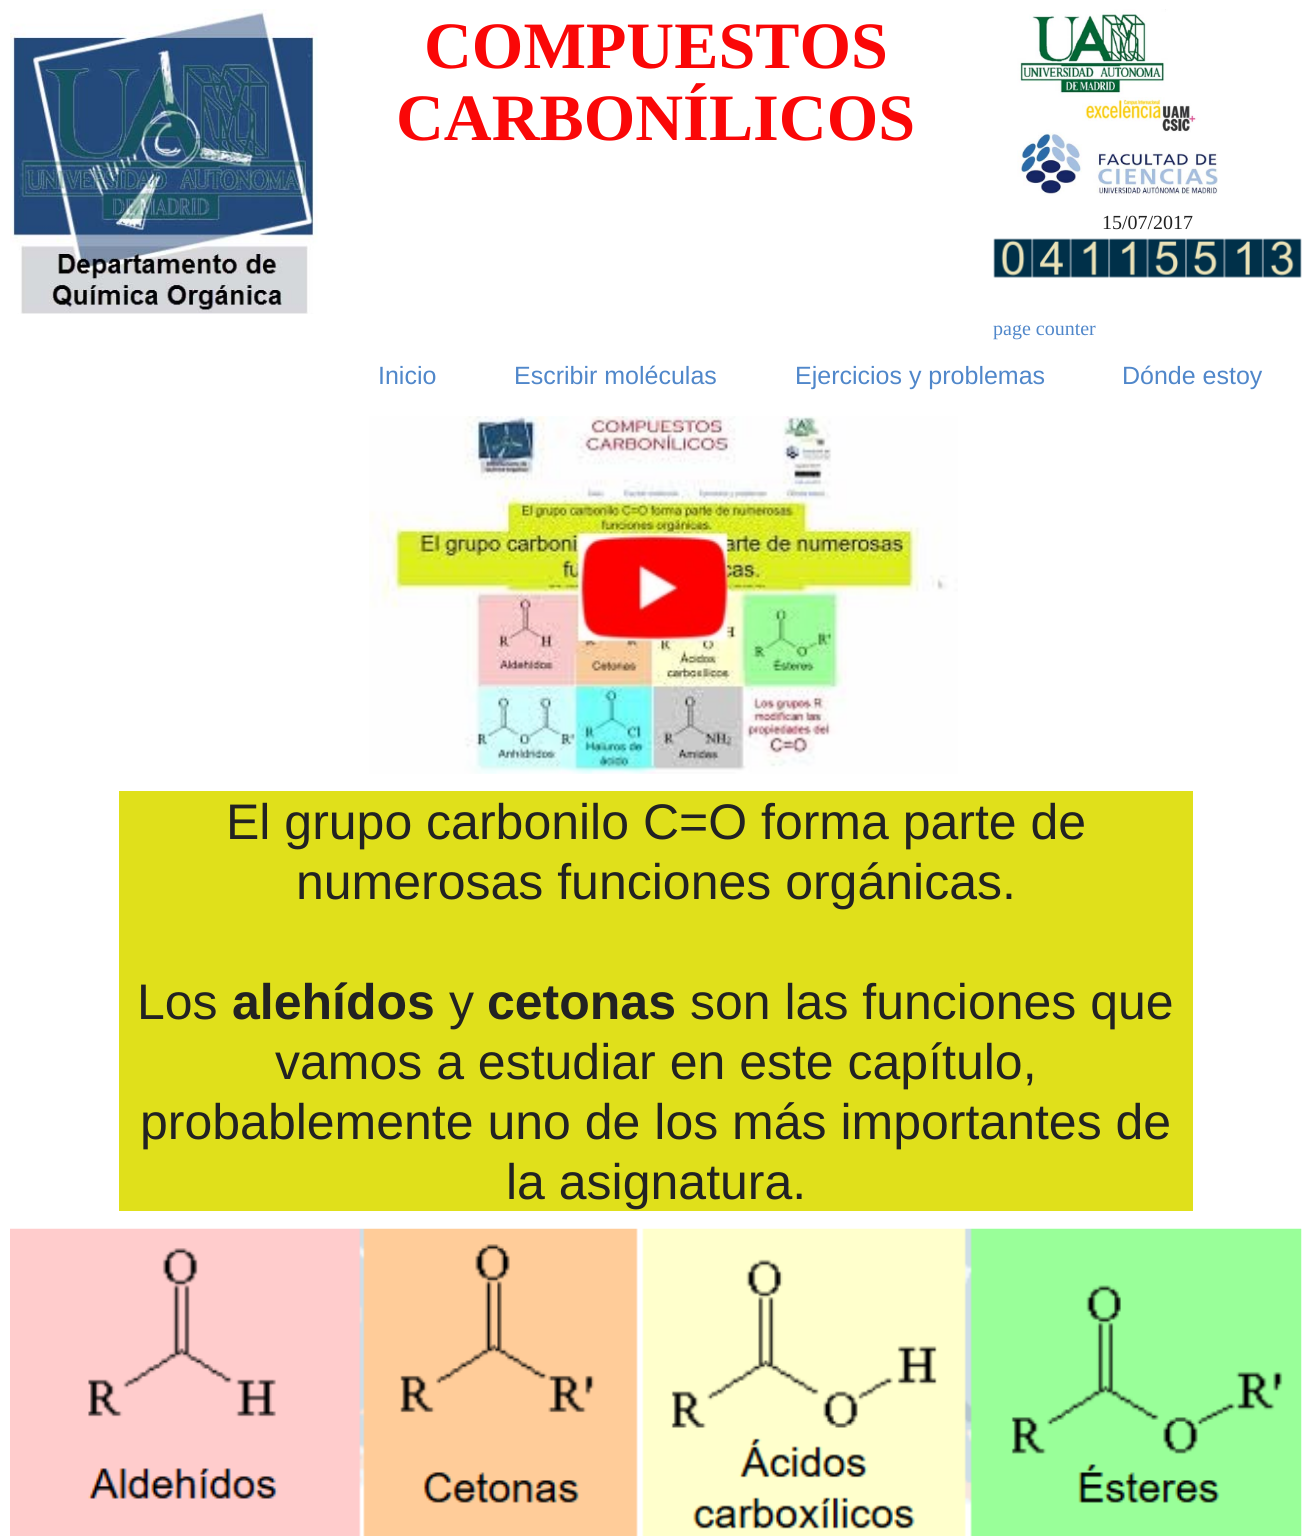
#include <cairo/cairo.h>
#include <math.h>
#include <stddef.h>


static void draw_image(cairo_t *cr, const char *path, double x, double y, double w, double h) {
  cairo_surface_t *image = cairo_image_surface_create_from_png(path);
  cairo_save(cr);
  cairo_set_source_surface(cr, image, x, y);
  cairo_rectangle(cr, x, y, w, h);
  cairo_fill(cr);
  cairo_restore(cr);
  cairo_surface_destroy(image);
}

static void draw(cairo_t *cr) {
  cairo_set_source_rgb(cr, 1, 1, 1);
  cairo_paint(cr);
  draw_image(cr, "images/1.png", 10, 9, 308, 305);
  draw_image(cr, "images/2.png", 1017, 9, 201, 187);
  draw_image(cr, "images/3.png", 993, 238, 309, 40);
  draw_image(cr, "images/4.png", 369, 416, 589, 358);
  cairo_set_source_rgb(cr, 224 / 255.0, 224 / 255.0, 27 / 255.0);
  cairo_rectangle(cr, 119, 791, 1074, 420);
  cairo_fill(cr);
  draw_image(cr, "images/5.png", 10, 1228, 1292, 308);
  cairo_select_font_face(cr, "Liberation Serif", CAIRO_FONT_SLANT_NORMAL, CAIRO_FONT_WEIGHT_BOLD);
  cairo_set_font_size(cr, 66.25);
  cairo_set_source_rgb(cr, 250 / 255.0, 7 / 255.0, 7 / 255.0);
  cairo_move_to(cr, 424, 68);
  cairo_show_text(cr, "COMPUESTOS");
  cairo_move_to(cr, 396, 140);
  cairo_show_text(cr, "CARBONÍLICOS");
  cairo_select_font_face(cr, "Liberation Serif", CAIRO_FONT_SLANT_NORMAL, CAIRO_FONT_WEIGHT_NORMAL);
  cairo_set_font_size(cr, 20);
  cairo_set_source_rgb(cr, 34 / 255.0, 34 / 255.0, 34 / 255.0);
  cairo_move_to(cr, 1102, 229);
  cairo_show_text(cr, "15/07/2017");
  cairo_set_source_rgb(cr, 80 / 255.0, 135 / 255.0, 202 / 255.0);
  cairo_move_to(cr, 993, 335);
  cairo_show_text(cr, "page counter");
  cairo_select_font_face(cr, "Liberation Sans", CAIRO_FONT_SLANT_NORMAL, CAIRO_FONT_WEIGHT_NORMAL);
  cairo_set_font_size(cr, 25);
  cairo_move_to(cr, 378, 384);
  cairo_show_text(cr, "Inicio");
  cairo_move_to(cr, 514, 384);
  cairo_show_text(cr, "Escribir moléculas");
  cairo_move_to(cr, 795, 384);
  cairo_show_text(cr, "Ejercicios y problemas");
  cairo_move_to(cr, 1122, 384);
  cairo_show_text(cr, "Dónde estoy");
  cairo_set_font_size(cr, 50);
  cairo_set_source_rgb(cr, 34 / 255.0, 34 / 255.0, 34 / 255.0);
  cairo_move_to(cr, 226, 839);
  cairo_show_text(cr, "El grupo carbonilo C=O forma parte de");
  cairo_move_to(cr, 296, 899);
  cairo_show_text(cr, "numerosas funciones orgánicas.");
  cairo_move_to(cr, 137, 1019);
  cairo_show_text(cr, "Los");
  cairo_select_font_face(cr, "Liberation Sans", CAIRO_FONT_SLANT_NORMAL, CAIRO_FONT_WEIGHT_BOLD);
  cairo_move_to(cr, 232, 1019);
  cairo_show_text(cr, "alehídos");
  cairo_select_font_face(cr, "Liberation Sans", CAIRO_FONT_SLANT_NORMAL, CAIRO_FONT_WEIGHT_NORMAL);
  cairo_move_to(cr, 449, 1019);
  cairo_show_text(cr, "y");
  cairo_select_font_face(cr, "Liberation Sans", CAIRO_FONT_SLANT_NORMAL, CAIRO_FONT_WEIGHT_BOLD);
  cairo_move_to(cr, 487, 1019);
  cairo_show_text(cr, "cetonas");
  cairo_select_font_face(cr, "Liberation Sans", CAIRO_FONT_SLANT_NORMAL, CAIRO_FONT_WEIGHT_NORMAL);
  cairo_move_to(cr, 690, 1019);
  cairo_show_text(cr, "son las funciones que");
  cairo_move_to(cr, 275, 1079);
  cairo_show_text(cr, "vamos a estudiar en este capítulo,");
  cairo_move_to(cr, 140, 1139);
  cairo_show_text(cr, "probablemente uno de los más importantes de");
  cairo_move_to(cr, 506, 1199);
  cairo_show_text(cr, "la asignatura.");
}

int main(void) {
  cairo_surface_t *surface = cairo_image_surface_create(CAIRO_FORMAT_RGB24, 1311, 1536);
  cairo_t *cr = cairo_create(surface);
  cairo_font_options_t *options = cairo_font_options_create();
  cairo_font_options_set_hint_metrics(options, CAIRO_HINT_METRICS_OFF);
  cairo_font_options_set_hint_style(options, CAIRO_HINT_STYLE_NONE);
  cairo_set_font_options(cr, options);
  cairo_set_miter_limit(cr, 4);
  draw(cr);
  cairo_surface_write_to_png(surface, "out.png");
  cairo_font_options_destroy(options);
  cairo_destroy(cr);
  cairo_surface_destroy(surface);
  return 0;
}
